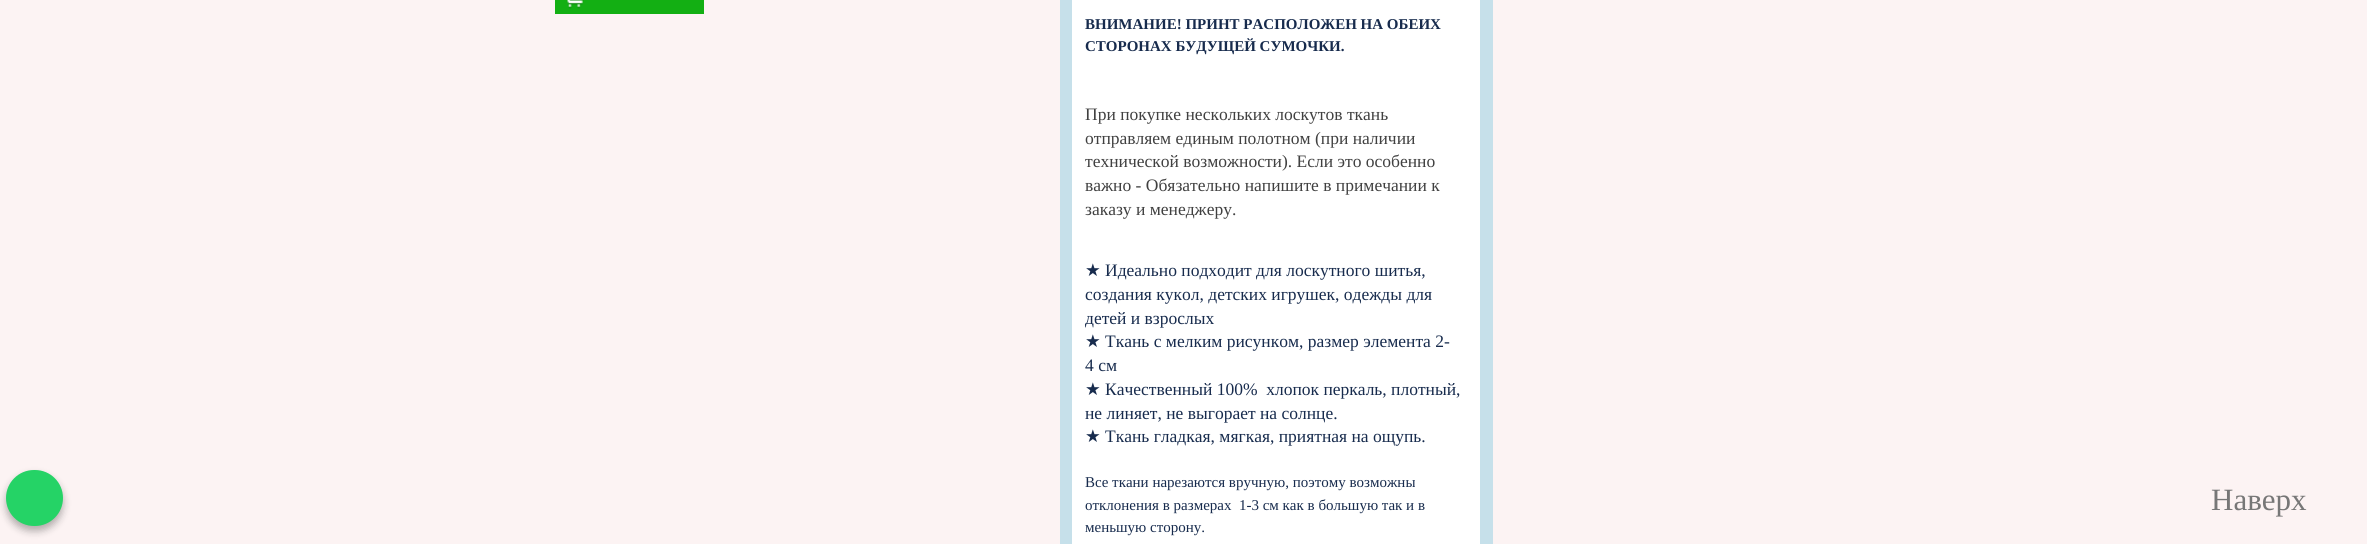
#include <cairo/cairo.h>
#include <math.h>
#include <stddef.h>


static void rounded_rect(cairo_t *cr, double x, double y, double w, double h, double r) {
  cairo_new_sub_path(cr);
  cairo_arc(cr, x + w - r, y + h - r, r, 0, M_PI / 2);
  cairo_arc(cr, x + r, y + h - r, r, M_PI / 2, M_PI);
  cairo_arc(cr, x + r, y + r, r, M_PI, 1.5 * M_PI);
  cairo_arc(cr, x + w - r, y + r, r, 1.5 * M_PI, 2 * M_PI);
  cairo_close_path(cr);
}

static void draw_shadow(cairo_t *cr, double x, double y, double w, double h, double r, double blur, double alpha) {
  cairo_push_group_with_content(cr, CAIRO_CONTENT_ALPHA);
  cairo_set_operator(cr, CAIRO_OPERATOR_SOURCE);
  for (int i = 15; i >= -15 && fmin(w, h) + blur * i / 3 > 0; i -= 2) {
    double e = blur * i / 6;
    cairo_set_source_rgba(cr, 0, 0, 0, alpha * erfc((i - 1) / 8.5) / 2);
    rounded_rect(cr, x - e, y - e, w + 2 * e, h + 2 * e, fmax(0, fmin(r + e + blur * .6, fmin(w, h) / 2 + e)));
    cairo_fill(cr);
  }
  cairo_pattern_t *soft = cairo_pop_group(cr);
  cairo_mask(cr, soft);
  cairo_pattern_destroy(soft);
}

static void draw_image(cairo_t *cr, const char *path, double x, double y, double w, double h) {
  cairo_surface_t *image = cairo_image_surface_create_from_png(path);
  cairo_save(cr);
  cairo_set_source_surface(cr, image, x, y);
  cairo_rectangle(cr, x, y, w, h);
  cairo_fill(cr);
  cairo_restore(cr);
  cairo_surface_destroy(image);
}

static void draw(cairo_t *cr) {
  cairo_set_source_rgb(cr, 252 / 255.0, 243 / 255.0, 243 / 255.0);
  cairo_paint(cr);
  cairo_set_source_rgb(cr, 0, 0, 0);
  draw_shadow(cr, 6, 475, 57, 56, 28, 4, 0.3);
  cairo_set_source_rgb(cr, 37 / 255.0, 211 / 255.0, 102 / 255.0);
  rounded_rect(cr, 6, 470, 57, 56, 28);
  cairo_fill(cr);
  cairo_set_source_rgb(cr, 19 / 255.0, 175 / 255.0, 19 / 255.0);
  cairo_rectangle(cr, 555, 0, 149, 14);
  cairo_fill(cr);
  draw_image(cr, "images/1.png", 567, 0, 17, 9);
  cairo_set_source_rgb(cr, 198 / 255.0, 224 / 255.0, 234 / 255.0);
  cairo_rectangle(cr, 1060, 0, 433, 544);
  cairo_fill(cr);
  cairo_set_source_rgb(cr, 1, 1, 1);
  cairo_rectangle(cr, 1072, 0, 408, 544);
  cairo_fill(cr);
  cairo_select_font_face(cr, "Liberation Serif", CAIRO_FONT_SLANT_NORMAL, CAIRO_FONT_WEIGHT_BOLD);
  cairo_set_font_size(cr, 15);
  cairo_set_source_rgb(cr, 23 / 255.0, 43 / 255.0, 77 / 255.0);
  cairo_move_to(cr, 1085, 29);
  cairo_show_text(cr, "ВНИМАНИЕ! ПРИНТ РАСПОЛОЖЕН НА ОБЕИХ");
  cairo_move_to(cr, 1085, 51);
  cairo_show_text(cr, "СТОРОНАХ БУДУЩЕЙ СУМОЧКИ.");
  cairo_select_font_face(cr, "Liberation Serif", CAIRO_FONT_SLANT_NORMAL, CAIRO_FONT_WEIGHT_NORMAL);
  cairo_set_font_size(cr, 17.5);
  cairo_set_source_rgb(cr, 64 / 255.0, 64 / 255.0, 64 / 255.0);
  cairo_move_to(cr, 1085, 120);
  cairo_show_text(cr, "При покупке нескольких лоскутов ткань");
  cairo_move_to(cr, 1085, 144);
  cairo_show_text(cr, "отправляем единым полотном (при наличии");
  cairo_move_to(cr, 1085, 167);
  cairo_show_text(cr, "технической возможности). Если это особенно");
  cairo_move_to(cr, 1085, 191);
  cairo_show_text(cr, "важно - Обязательно напишите в примечании к");
  cairo_move_to(cr, 1085, 215);
  cairo_show_text(cr, "заказу и менеджеру.");
  cairo_select_font_face(cr, "DejaVu Sans", CAIRO_FONT_SLANT_NORMAL, CAIRO_FONT_WEIGHT_NORMAL);
  cairo_set_source_rgb(cr, 23 / 255.0, 43 / 255.0, 77 / 255.0);
  cairo_move_to(cr, 1085, 276);
  cairo_show_text(cr, "★");
  cairo_select_font_face(cr, "Liberation Serif", CAIRO_FONT_SLANT_NORMAL, CAIRO_FONT_WEIGHT_NORMAL);
  cairo_move_to(cr, 1105, 276);
  cairo_show_text(cr, "Идеально подходит для лоскутного шитья,");
  cairo_move_to(cr, 1085, 300);
  cairo_show_text(cr, "создания кукол, детских игрушек, одежды для");
  cairo_move_to(cr, 1085, 324);
  cairo_show_text(cr, "детей и взрослых");
  cairo_select_font_face(cr, "DejaVu Sans", CAIRO_FONT_SLANT_NORMAL, CAIRO_FONT_WEIGHT_NORMAL);
  cairo_move_to(cr, 1085, 347);
  cairo_show_text(cr, "★");
  cairo_select_font_face(cr, "Liberation Serif", CAIRO_FONT_SLANT_NORMAL, CAIRO_FONT_WEIGHT_NORMAL);
  cairo_move_to(cr, 1105, 347);
  cairo_show_text(cr, "Ткань с мелким рисунком, размер элемента 2-");
  cairo_move_to(cr, 1085, 371);
  cairo_show_text(cr, "4 см");
  cairo_select_font_face(cr, "DejaVu Sans", CAIRO_FONT_SLANT_NORMAL, CAIRO_FONT_WEIGHT_NORMAL);
  cairo_move_to(cr, 1085, 395);
  cairo_show_text(cr, "★");
  cairo_select_font_face(cr, "Liberation Serif", CAIRO_FONT_SLANT_NORMAL, CAIRO_FONT_WEIGHT_NORMAL);
  cairo_move_to(cr, 1105, 395);
  cairo_show_text(cr, "Качественный 100%  хлопок перкаль, плотный,");
  cairo_move_to(cr, 1085, 419);
  cairo_show_text(cr, "не линяет, не выгорает на солнце.");
  cairo_select_font_face(cr, "DejaVu Sans", CAIRO_FONT_SLANT_NORMAL, CAIRO_FONT_WEIGHT_NORMAL);
  cairo_move_to(cr, 1085, 442);
  cairo_show_text(cr, "★");
  cairo_select_font_face(cr, "Liberation Serif", CAIRO_FONT_SLANT_NORMAL, CAIRO_FONT_WEIGHT_NORMAL);
  cairo_move_to(cr, 1105, 442);
  cairo_show_text(cr, "Ткань гладкая, мягкая, приятная на ощупь.");
  cairo_set_font_size(cr, 15);
  cairo_move_to(cr, 1085, 487);
  cairo_show_text(cr, "Все ткани нарезаются вручную, поэтому возможны");
  cairo_move_to(cr, 1085, 510);
  cairo_show_text(cr, "отклонения в размерах  1-3 см как в большую так и в");
  cairo_move_to(cr, 1085, 532);
  cairo_show_text(cr, "меньшую сторону.");
  cairo_set_font_size(cr, 31);
  cairo_set_source_rgb(cr, 119 / 255.0, 119 / 255.0, 119 / 255.0);
  cairo_move_to(cr, 2211, 510);
  cairo_show_text(cr, "Наверх");
}

int main(void) {
  cairo_surface_t *surface = cairo_image_surface_create(CAIRO_FORMAT_RGB24, 2367, 544);
  cairo_t *cr = cairo_create(surface);
  cairo_font_options_t *options = cairo_font_options_create();
  cairo_font_options_set_hint_metrics(options, CAIRO_HINT_METRICS_OFF);
  cairo_font_options_set_hint_style(options, CAIRO_HINT_STYLE_NONE);
  cairo_set_font_options(cr, options);
  cairo_set_miter_limit(cr, 4);
  draw(cr);
  cairo_surface_write_to_png(surface, "out.png");
  cairo_font_options_destroy(options);
  cairo_destroy(cr);
  cairo_surface_destroy(surface);
  return 0;
}
